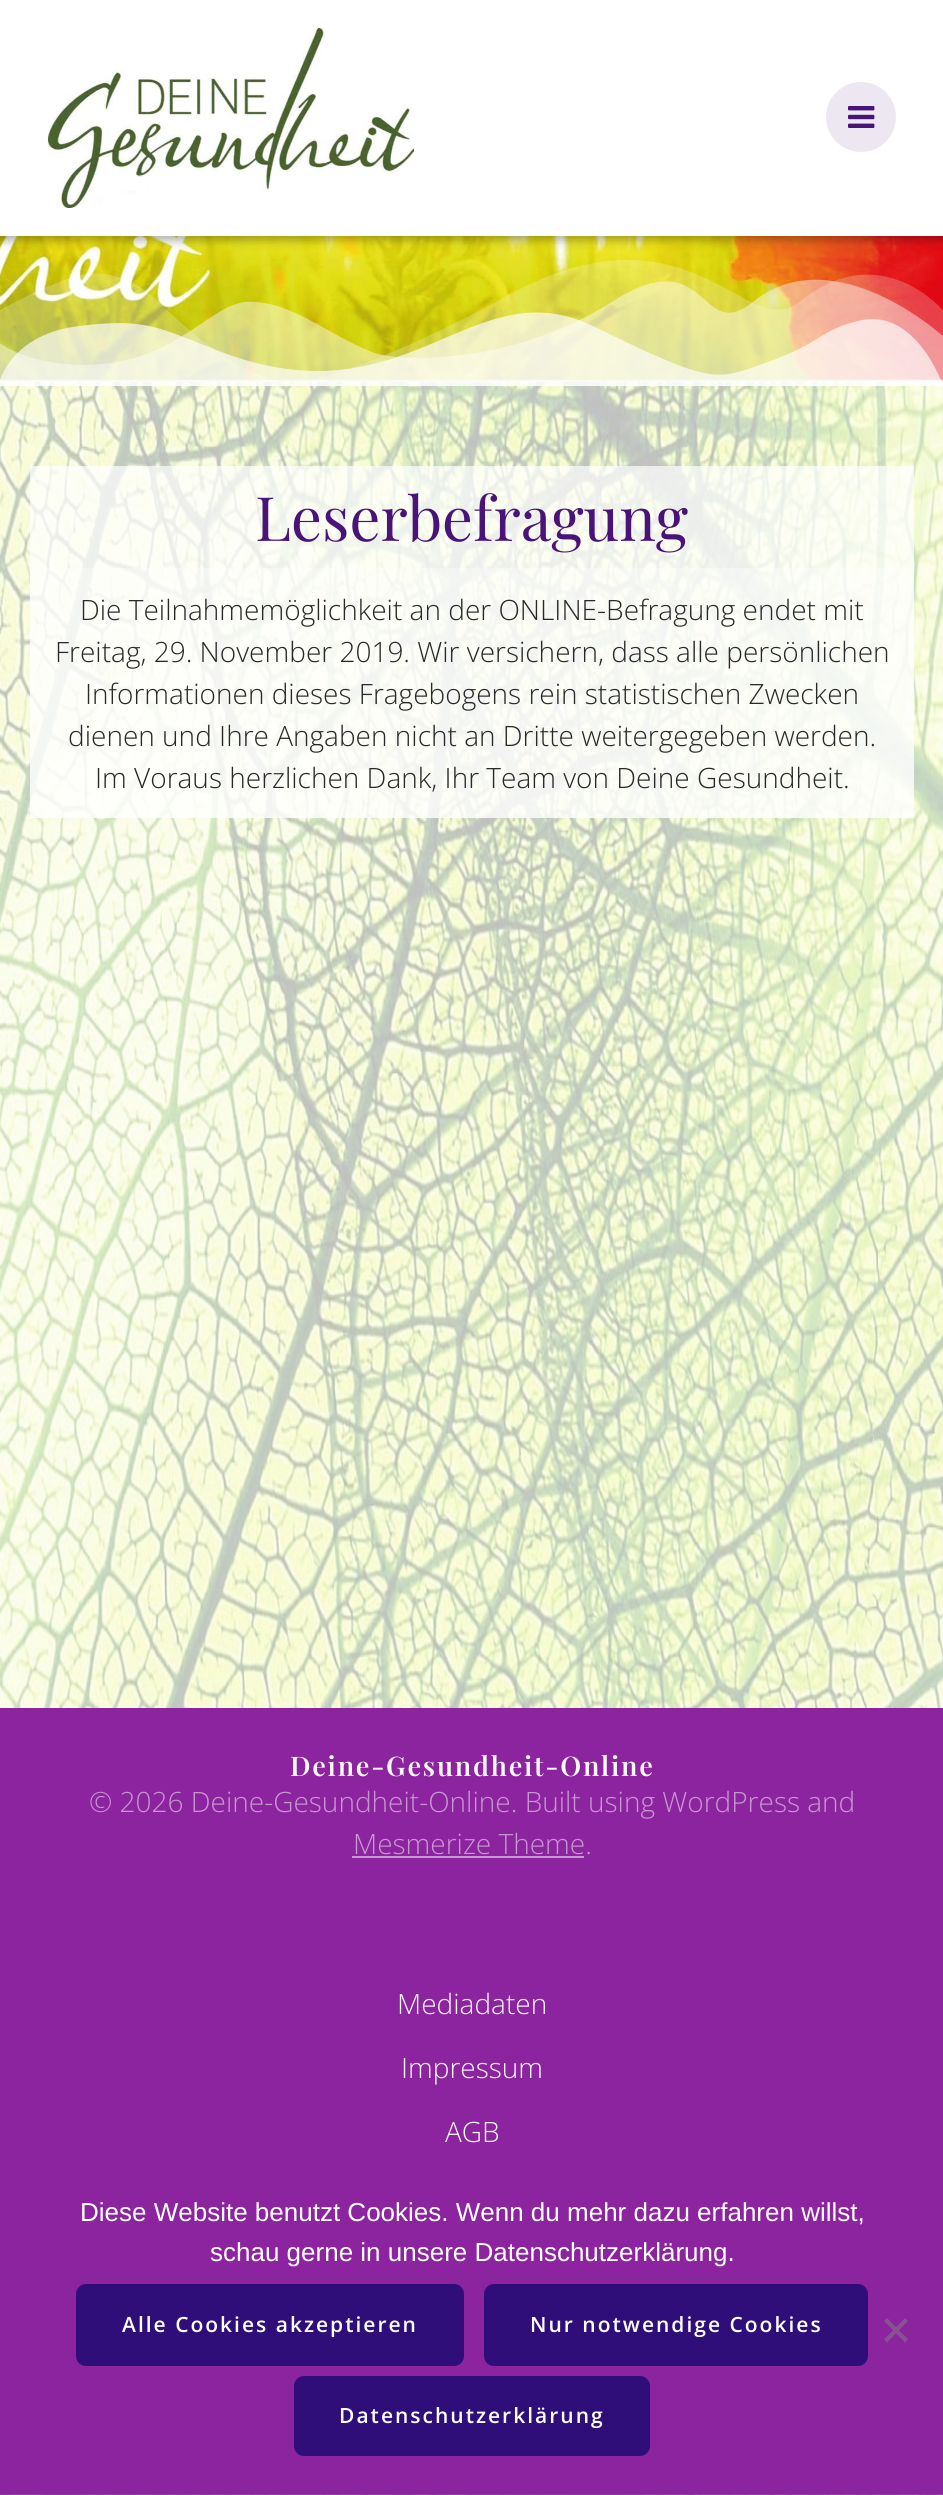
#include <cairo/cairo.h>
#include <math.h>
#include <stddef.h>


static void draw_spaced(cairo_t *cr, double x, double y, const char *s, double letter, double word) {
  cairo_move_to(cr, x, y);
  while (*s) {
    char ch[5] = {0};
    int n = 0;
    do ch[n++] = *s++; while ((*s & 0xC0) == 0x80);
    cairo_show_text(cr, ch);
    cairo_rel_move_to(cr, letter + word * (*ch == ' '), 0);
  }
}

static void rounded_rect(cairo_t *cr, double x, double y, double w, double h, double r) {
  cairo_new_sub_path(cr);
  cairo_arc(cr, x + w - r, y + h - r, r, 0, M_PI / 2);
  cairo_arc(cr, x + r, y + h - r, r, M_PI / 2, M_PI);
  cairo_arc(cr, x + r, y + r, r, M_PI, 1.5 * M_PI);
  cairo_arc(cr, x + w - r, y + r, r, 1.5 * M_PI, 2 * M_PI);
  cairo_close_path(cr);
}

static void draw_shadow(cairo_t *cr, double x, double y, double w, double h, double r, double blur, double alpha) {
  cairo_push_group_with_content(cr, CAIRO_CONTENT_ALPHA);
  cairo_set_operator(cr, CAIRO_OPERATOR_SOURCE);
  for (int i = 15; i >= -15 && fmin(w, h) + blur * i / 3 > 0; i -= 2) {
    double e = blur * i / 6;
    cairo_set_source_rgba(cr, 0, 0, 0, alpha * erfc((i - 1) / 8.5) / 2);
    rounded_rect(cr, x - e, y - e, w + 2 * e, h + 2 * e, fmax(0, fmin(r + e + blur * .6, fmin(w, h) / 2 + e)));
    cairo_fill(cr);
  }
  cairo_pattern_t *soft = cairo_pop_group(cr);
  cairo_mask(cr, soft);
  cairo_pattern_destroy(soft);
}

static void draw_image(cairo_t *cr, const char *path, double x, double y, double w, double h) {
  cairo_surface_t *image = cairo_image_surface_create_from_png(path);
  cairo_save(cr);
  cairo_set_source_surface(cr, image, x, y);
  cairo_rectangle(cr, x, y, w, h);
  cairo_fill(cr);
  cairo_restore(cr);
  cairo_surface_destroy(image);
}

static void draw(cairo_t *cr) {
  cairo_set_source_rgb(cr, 1, 1, 1);
  cairo_paint(cr);
  draw_image(cr, "images/4.png", 0, 236, 943, 146);
  cairo_set_source_rgb(cr, 0, 0, 0);
  draw_shadow(cr, -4, -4, 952, 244, 0, 5, 0.33);
  cairo_set_source_rgb(cr, 1, 1, 1);
  cairo_rectangle(cr, 0, 0, 943, 236);
  cairo_fill(cr);
  draw_image(cr, "images/1.png", 47, 28, 367, 180);
  cairo_set_source_rgb(cr, 237 / 255.0, 231 / 255.0, 241 / 255.0);
  cairo_arc(cr, 861, 117, 35, 0, 2 * M_PI);
  cairo_fill(cr);
  draw_image(cr, "images/2.png", 848, 106, 27, 22);
  draw_image(cr, "images/3.png", 0, 382, 943, 2113);
  draw_image(cr, "images/5.png", 0, 260, 943, 126);
  cairo_set_source_rgba(cr, 1, 1, 1, 0.7);
  cairo_rectangle(cr, 30, 466, 884, 102);
  cairo_fill(cr);
  cairo_rectangle(cr, 30, 568, 884, 250);
  cairo_fill(cr);
  cairo_set_source_rgba(cr, 1, 1, 1, 0.35);
  cairo_rectangle(cr, 30, 568, 884, 250);
  cairo_fill(cr);
  cairo_set_source_rgb(cr, 140 / 255.0, 35 / 255.0, 159 / 255.0);
  cairo_rectangle(cr, 0, 1708, 943, 786);
  cairo_fill(cr);
  cairo_set_source_rgb(cr, 199 / 255.0, 152 / 255.0, 208 / 255.0);
  cairo_rectangle(cr, 352, 1856, 232, 2);
  cairo_fill(cr);
  cairo_set_source_rgba(cr, 140 / 255.0, 35 / 255.0, 159 / 255.0, 0.9);
  cairo_rectangle(cr, 0, 2494, 943, 1);
  cairo_fill(cr);
  cairo_set_source_rgb(cr, 47 / 255.0, 14 / 255.0, 121 / 255.0);
  rounded_rect(cr, 78, 2286, 384, 78, 8);
  cairo_fill_preserve(cr);
  cairo_set_line_width(cr, 4);
  cairo_stroke(cr);
  rounded_rect(cr, 486, 2286, 380, 78, 8);
  cairo_fill_preserve(cr);
  cairo_stroke(cr);
  rounded_rect(cr, 296, 2378, 352, 76, 8);
  cairo_fill_preserve(cr);
  cairo_stroke(cr);
  cairo_set_source_rgb(cr, 134 / 255.0, 82 / 255.0, 144 / 255.0);
  cairo_new_path(cr);
  cairo_move_to(cr, 905, 2318);
  cairo_line_to(cr, 908, 2321);
  cairo_line_to(cr, 887, 2342.5);
  cairo_line_to(cr, 884, 2339.5);
  cairo_close_path(cr);
  cairo_fill(cr);
  cairo_new_path(cr);
  cairo_move_to(cr, 884, 2321);
  cairo_line_to(cr, 887, 2318);
  cairo_line_to(cr, 908, 2339.5);
  cairo_line_to(cr, 905, 2342.5);
  cairo_close_path(cr);
  cairo_fill(cr);
  cairo_select_font_face(cr, "Playfair Display", CAIRO_FONT_SLANT_NORMAL, CAIRO_FONT_WEIGHT_NORMAL);
  cairo_set_font_size(cr, 61.25);
  cairo_set_source_rgb(cr, 73 / 255.0, 19 / 255.0, 119 / 255.0);
  cairo_move_to(cr, 255, 541);
  cairo_show_text(cr, "Leserbefragung");
  cairo_select_font_face(cr, "Open Sans Light", CAIRO_FONT_SLANT_NORMAL, CAIRO_FONT_WEIGHT_NORMAL);
  cairo_set_font_size(cr, 28);
  cairo_set_source_rgb(cr, 40 / 255.0, 40 / 255.0, 40 / 255.0);
  cairo_move_to(cr, 80, 620);
  cairo_show_text(cr, "Die Teilnahmemöglichkeit an der ONLINE-Befragung endet mit");
  cairo_move_to(cr, 55, 662);
  cairo_show_text(cr, "Freitag, 29. November 2019. Wir versichern, dass alle persönlichen");
  cairo_move_to(cr, 85, 704);
  cairo_show_text(cr, "Informationen dieses Fragebogens rein statistischen Zwecken");
  cairo_move_to(cr, 68, 746);
  cairo_show_text(cr, "dienen und Ihre Angaben nicht an Dritte weitergegeben werden.");
  cairo_move_to(cr, 95, 788);
  cairo_show_text(cr, "Im Voraus herzlichen Dank, Ihr Team von Deine Gesundheit.");
  cairo_select_font_face(cr, "Playfair Display SemiBold", CAIRO_FONT_SLANT_NORMAL, CAIRO_FONT_WEIGHT_NORMAL);
  cairo_set_font_size(cr, 27);
  cairo_set_source_rgb(cr, 248 / 255.0, 248 / 255.0, 248 / 255.0);
  draw_spaced(cr, 290, 1776, "Deine-Gesundheit-Online", 1.75, 0);
  cairo_select_font_face(cr, "Open Sans Light", CAIRO_FONT_SLANT_NORMAL, CAIRO_FONT_WEIGHT_NORMAL);
  cairo_set_font_size(cr, 28);
  cairo_set_source_rgb(cr, 199 / 255.0, 152 / 255.0, 208 / 255.0);
  cairo_move_to(cr, 89, 1812);
  cairo_show_text(cr, "© 2026 Deine-Gesundheit-Online. Built using WordPress and");
  cairo_move_to(cr, 353, 1854);
  cairo_show_text(cr, "Mesmerize Theme.");
  cairo_set_source_rgb(cr, 248 / 255.0, 248 / 255.0, 248 / 255.0);
  cairo_move_to(cr, 397, 2014);
  cairo_show_text(cr, "Mediadaten");
  cairo_move_to(cr, 401, 2078);
  cairo_show_text(cr, "Impressum");
  cairo_move_to(cr, 445, 2142);
  cairo_show_text(cr, "AGB");
  cairo_select_font_face(cr, "Liberation Sans", CAIRO_FONT_SLANT_NORMAL, CAIRO_FONT_WEIGHT_NORMAL);
  cairo_set_font_size(cr, 26);
  cairo_set_source_rgb(cr, 1, 1, 1);
  cairo_move_to(cr, 80, 2221);
  cairo_show_text(cr, "Diese Website benutzt Cookies. Wenn du mehr dazu erfahren willst,");
  cairo_move_to(cr, 210, 2261);
  cairo_show_text(cr, "schau gerne in unsere Datenschutzerklärung.");
  cairo_select_font_face(cr, "Open Sans SemiBold", CAIRO_FONT_SLANT_NORMAL, CAIRO_FONT_WEIGHT_NORMAL);
  cairo_set_font_size(cr, 21);
  draw_spaced(cr, 122, 2332, "Alle Cookies akzeptieren", 2, 0);
  draw_spaced(cr, 530, 2332, "Nur notwendige Cookies", 2, 0);
  draw_spaced(cr, 339, 2423, "Datenschutzerklärung", 2, 0);
}

int main(void) {
  cairo_surface_t *surface = cairo_image_surface_create(CAIRO_FORMAT_RGB24, 943, 2495);
  cairo_t *cr = cairo_create(surface);
  cairo_font_options_t *options = cairo_font_options_create();
  cairo_font_options_set_hint_metrics(options, CAIRO_HINT_METRICS_OFF);
  cairo_font_options_set_hint_style(options, CAIRO_HINT_STYLE_NONE);
  cairo_set_font_options(cr, options);
  cairo_set_miter_limit(cr, 4);
  draw(cr);
  cairo_surface_write_to_png(surface, "out.png");
  cairo_font_options_destroy(options);
  cairo_destroy(cr);
  cairo_surface_destroy(surface);
  return 0;
}
